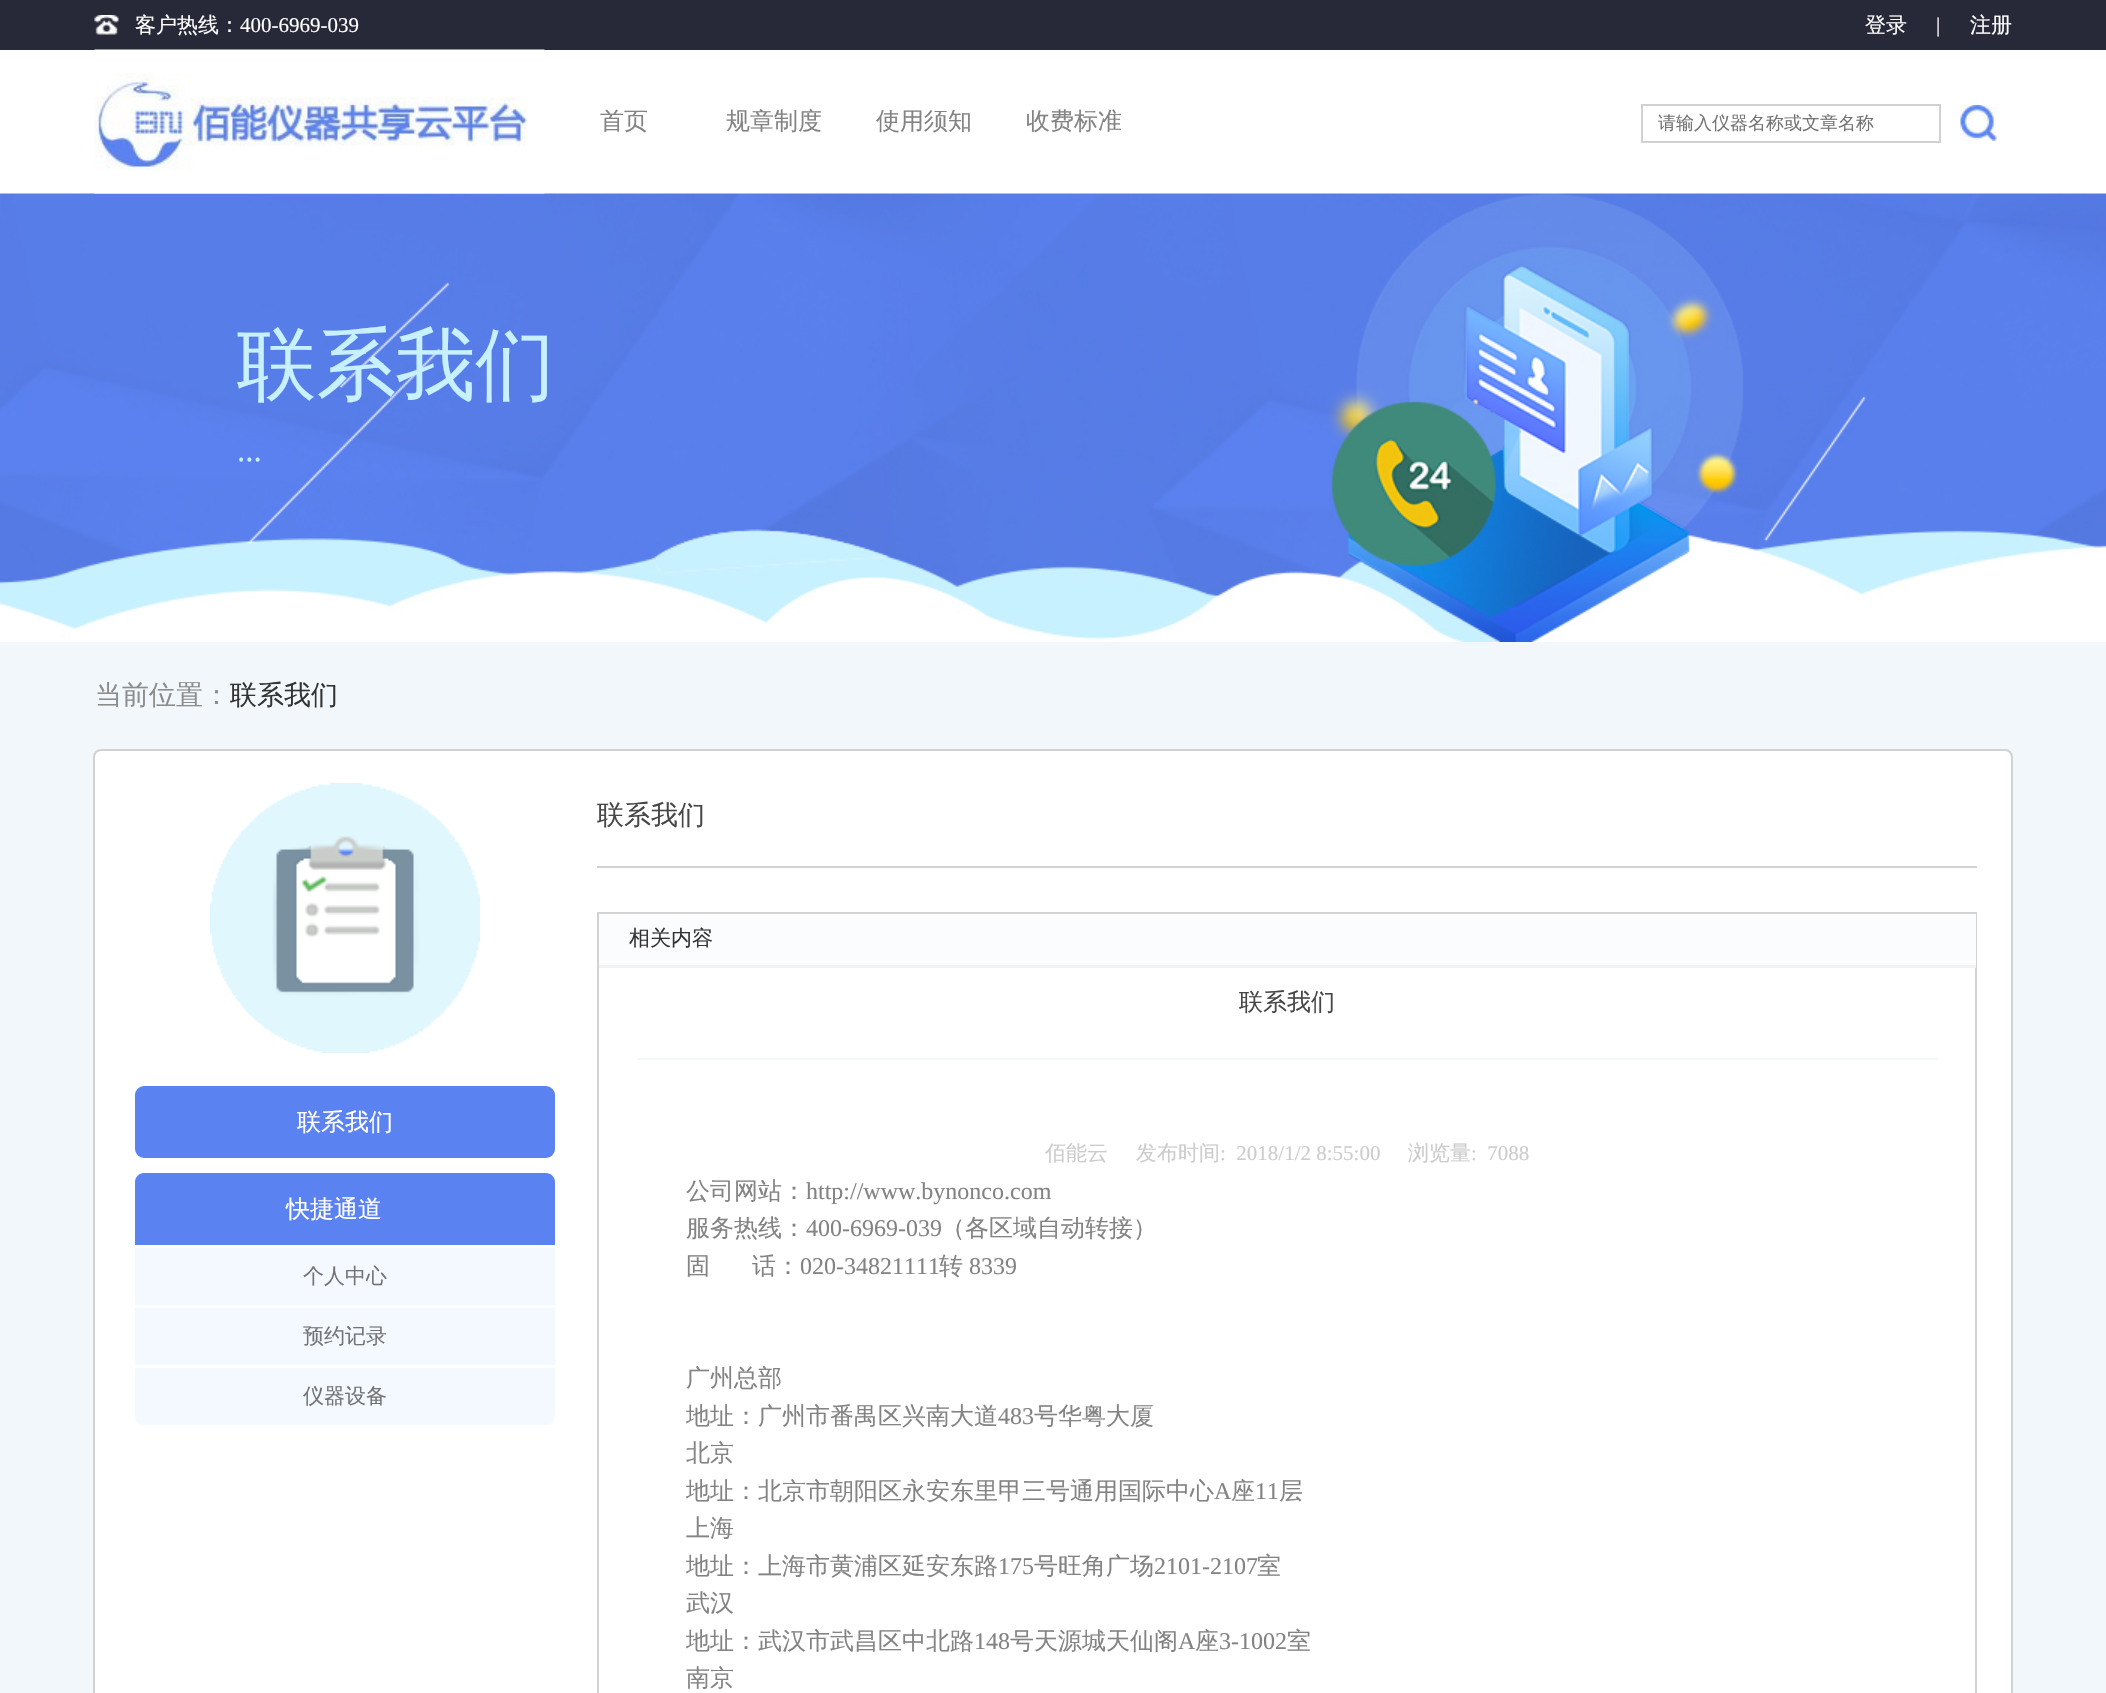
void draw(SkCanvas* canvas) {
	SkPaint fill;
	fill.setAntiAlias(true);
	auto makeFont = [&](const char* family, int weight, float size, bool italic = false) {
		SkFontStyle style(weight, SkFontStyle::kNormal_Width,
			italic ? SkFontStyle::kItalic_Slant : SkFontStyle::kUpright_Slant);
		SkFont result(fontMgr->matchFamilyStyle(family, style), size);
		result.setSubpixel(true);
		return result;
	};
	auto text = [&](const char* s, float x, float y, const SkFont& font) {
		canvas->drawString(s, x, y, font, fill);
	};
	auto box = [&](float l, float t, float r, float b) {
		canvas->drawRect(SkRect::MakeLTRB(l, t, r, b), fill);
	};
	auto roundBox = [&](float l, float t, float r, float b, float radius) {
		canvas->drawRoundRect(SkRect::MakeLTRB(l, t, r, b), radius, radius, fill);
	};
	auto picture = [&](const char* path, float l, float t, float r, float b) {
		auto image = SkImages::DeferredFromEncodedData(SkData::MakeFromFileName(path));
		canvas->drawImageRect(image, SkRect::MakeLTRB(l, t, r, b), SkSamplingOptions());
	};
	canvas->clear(0xFFFFFFFF);
	fill.setColor(0xFF272938);
	box(0, 0, 2106, 50);
	picture("image0.png", 94, 15, 119, 35);
	picture("image3.png", 0, 193, 2106, 642);
	picture("image1.png", 94, 49, 545, 194);
	fill.setStyle(SkPaint::kStroke_Style);
	fill.setStrokeWidth(2);
	fill.setColor(0xFFD1D1D1);
	canvas->drawRect(SkRect::MakeLTRB(1642, 105, 1940, 142), fill);
	picture("image2.png", 1960, 105, 1997, 141);
	fill.setStyle(SkPaint::kFill_Style);
	fill.setColor(0xFFF2F7FB);
	box(0, 642, 2106, 1693);
	fill.setColor(0xFFFFFFFF);
	canvas->drawRoundRect(SkRect::MakeLTRB(94, 750, 2012, 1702), 7, 7, fill);
	fill.setStyle(SkPaint::kStroke_Style);
	fill.setColor(0xFFD2D2D2);
	canvas->drawRoundRect(SkRect::MakeLTRB(94, 750, 2012, 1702), 7, 7, fill);
	picture("image4.png", 210, 783, 480, 1053);
	fill.setStyle(SkPaint::kFill_Style);
	fill.setColor(0xFF5B82F1);
	roundBox(135, 1086, 555, 1158, 9);
	canvas->drawPath(SkPathBuilder().moveTo(144, 1173).lineTo(546, 1173).cubicTo(551, 1173, 555, 1177, 555, 1182).lineTo(555, 1245).lineTo(135, 1245).lineTo(135, 1182).cubicTo(135, 1177, 139, 1173, 144, 1173).close().detach(), fill);
	fill.setColor(0xFFF4F9FF);
	box(135, 1248, 555, 1305);
	box(135, 1308, 555, 1365);
	canvas->drawPath(SkPathBuilder().moveTo(135, 1368).lineTo(555, 1368).lineTo(555, 1416).cubicTo(555, 1421, 551, 1425, 546, 1425).lineTo(144, 1425).cubicTo(139, 1425, 135, 1421, 135, 1416).close().detach(), fill);
	fill.setColor(0xFFD2D2D2);
	box(597, 866, 1977, 868);
	fill.setStyle(SkPaint::kStroke_Style);
	canvas->drawRect(SkRect::MakeLTRB(598, 913, 1976, 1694), fill);
	fill.setStyle(SkPaint::kFill_Style);
	fill.setColor(0xFFFBFCFE);
	box(599, 914, 1976, 965);
	fill.setColor(0xFFF3F2F2);
	box(599, 965, 1976, 968);
	fill.setColor(0xFFF2F7FB);
	box(638, 1058, 1937, 1060);
	auto font1 = makeFont("WenQuanYi Zen Hei", 500, 21);
	fill.setColor(0xFFFFFFFF);
	text("客户热线：", 135, 32, font1);
	auto font2 = makeFont("Liberation Serif", 400, 21);
	text("400-6969-039", 240, 32, font2);
	text("登录", 1865, 32, font1);
	text("|", 1936, 32, font2);
	text("注册", 1970, 32, font1);
	auto font3 = makeFont("WenQuanYi Zen Hei", 500, 24);
	fill.setColor(0xFF838383);
	text("首页", 600, 129, font3);
	text("规章制度", 726, 129, font3);
	text("使用须知", 876, 129, font3);
	text("收费标准", 1026, 129, font3);
	auto font4 = makeFont("WenQuanYi Zen Hei", 500, 18);
	fill.setColor(0xFF737373);
	text("请输入仪器名称或文章名称", 1658, 129, font4);
	auto font5 = makeFont("WenQuanYi Zen Hei", 500, 79.5f);
	fill.setColor(0xFFC8F1FF);
	text("联系我们", 237, 392, font5);
	auto font6 = makeFont("Liberation Serif", 400, 33);
	text("...", 237, 461, font6);
	auto font7 = makeFont("WenQuanYi Zen Hei", 500, 27);
	fill.setColor(0xFF8C8C8C);
	text("当前位置：", 95, 704, font7);
	fill.setColor(0xFF333333);
	text("联系我们", 230, 704, font7);
	fill.setColor(0xFFFFFFFF);
	text("联系我们", 297, 1130, font3);
	text("快捷通道", 286, 1217, font3);
	fill.setColor(0xFF737373);
	text("个人中心", 303, 1283, font1);
	text("预约记录", 303, 1343, font1);
	text("仪器设备", 303, 1403, font1);
	fill.setColor(0xFF484747);
	text("联系我们", 597, 824, font7);
	fill.setColor(0xFF333333);
	text("相关内容", 629, 945, font1);
	fill.setColor(0xFF484747);
	text("联系我们", 1239, 1010, font3);
	fill.setColor(0xFFCCCCCC);
	text("佰能云", 1045, 1160, font1);
	text("发布时间", 1136, 1160, font1);
	text(":  2018/1/2 8:55:00", 1220, 1160, font2);
	text("浏览量", 1408, 1160, font1);
	text(":  7088", 1471, 1160, font2);
	fill.setColor(0xFF838383);
	text("公司网站：", 686, 1199, font3);
	auto font8 = makeFont("Liberation Serif", 400, 24);
	text("http://www.bynonco.com", 806, 1199, font8);
	text("服务热线：", 686, 1236, font3);
	text("400-6969-039", 806, 1236, font8);
	text("（各区域自动转接）", 941, 1236, font3);
	text("固", 686, 1274, font3);
	text("话：", 752, 1274, font3);
	text("020-34821111", 800, 1274, font8);
	text("转", 939, 1274, font3);
	text("8339", 969, 1274, font8);
	text("广州总部", 686, 1386, font3);
	text("地址：广州市番禺区兴南大道", 686, 1424, font3);
	text("483", 998, 1424, font8);
	text("号华粤大厦", 1034, 1424, font3);
	text("北京", 686, 1461, font3);
	text("地址：北京市朝阳区永安东里甲三号通用国际中心", 686, 1499, font3);
	text("A", 1214, 1499, font8);
	text("座", 1231, 1499, font3);
	text("11", 1255, 1499, font8);
	text("层", 1279, 1499, font3);
	text("上海", 686, 1536, font3);
	text("地址：上海市黄浦区延安东路", 686, 1574, font3);
	text("175", 998, 1574, font8);
	text("号旺角广场", 1034, 1574, font3);
	text("2101-2107", 1154, 1574, font8);
	text("室", 1257, 1574, font3);
	text("武汉", 686, 1611, font3);
	text("地址：武汉市武昌区中北路", 686, 1649, font3);
	text("148", 974, 1649, font8);
	text("号天源城天仙阁", 1010, 1649, font3);
	text("A", 1178, 1649, font8);
	text("座", 1195, 1649, font3);
	text("3-1002", 1219, 1649, font8);
	text("室", 1287, 1649, font3);
	text("南京", 686, 1686, font3);
}
